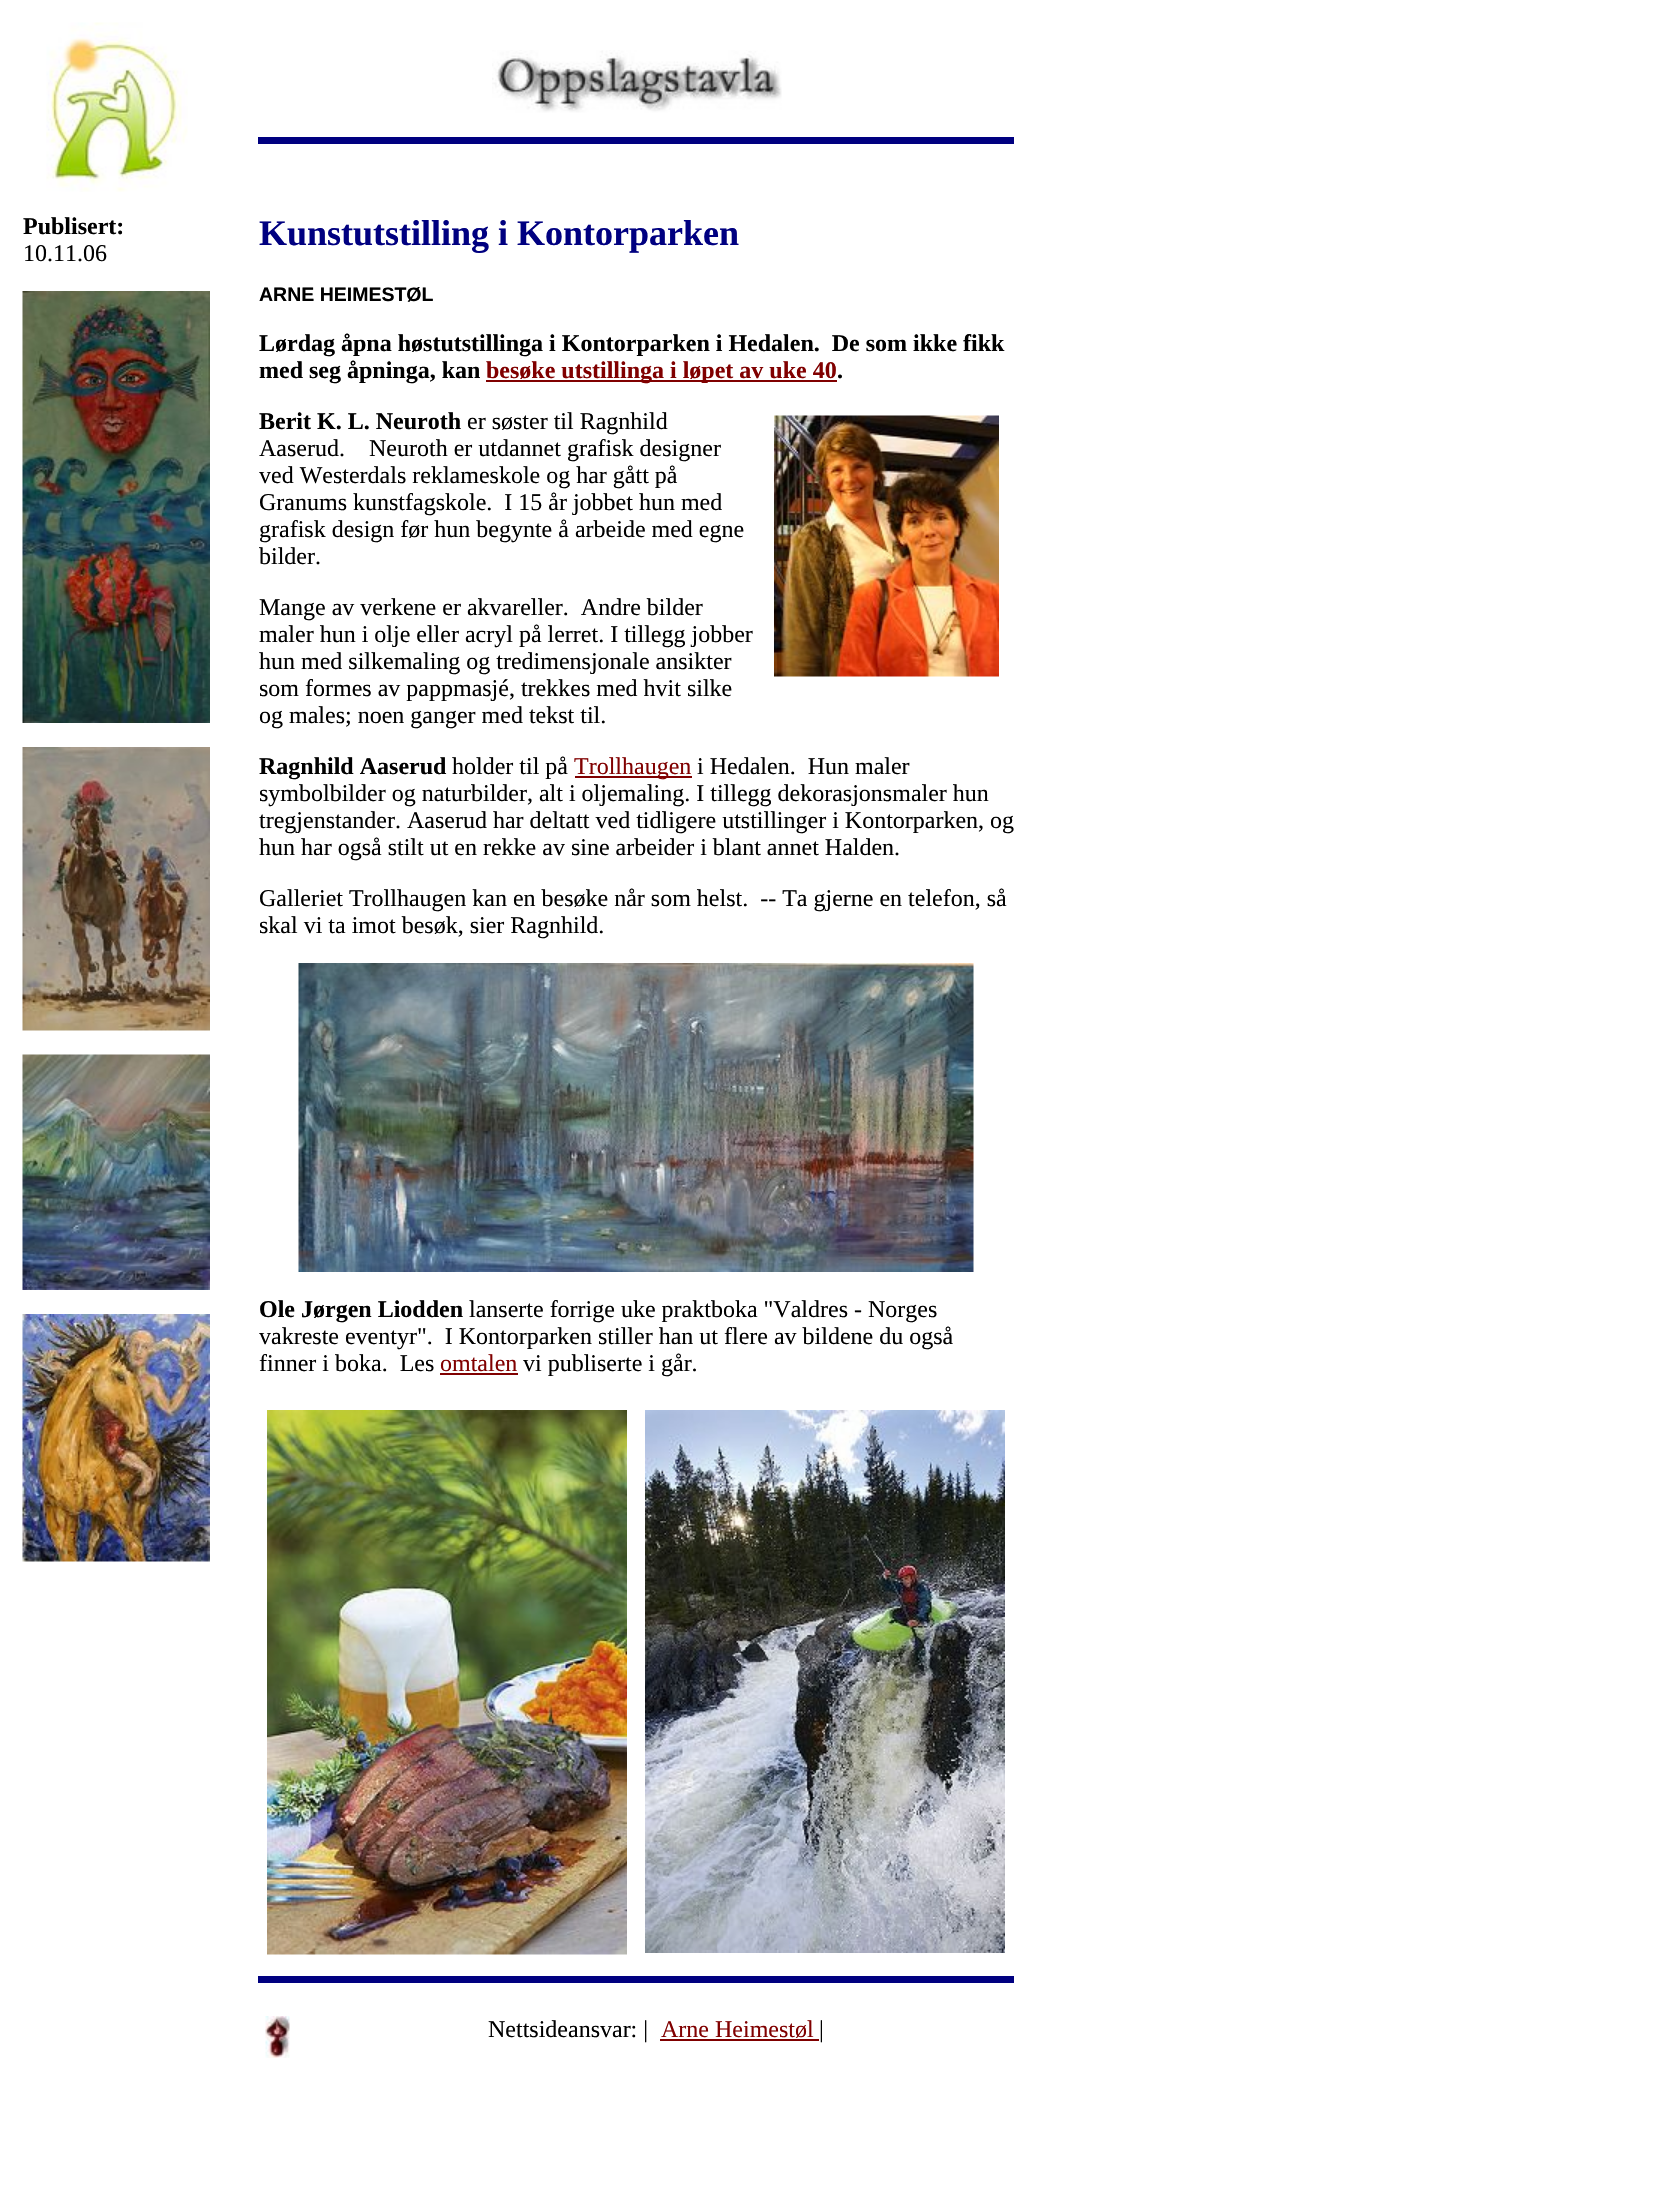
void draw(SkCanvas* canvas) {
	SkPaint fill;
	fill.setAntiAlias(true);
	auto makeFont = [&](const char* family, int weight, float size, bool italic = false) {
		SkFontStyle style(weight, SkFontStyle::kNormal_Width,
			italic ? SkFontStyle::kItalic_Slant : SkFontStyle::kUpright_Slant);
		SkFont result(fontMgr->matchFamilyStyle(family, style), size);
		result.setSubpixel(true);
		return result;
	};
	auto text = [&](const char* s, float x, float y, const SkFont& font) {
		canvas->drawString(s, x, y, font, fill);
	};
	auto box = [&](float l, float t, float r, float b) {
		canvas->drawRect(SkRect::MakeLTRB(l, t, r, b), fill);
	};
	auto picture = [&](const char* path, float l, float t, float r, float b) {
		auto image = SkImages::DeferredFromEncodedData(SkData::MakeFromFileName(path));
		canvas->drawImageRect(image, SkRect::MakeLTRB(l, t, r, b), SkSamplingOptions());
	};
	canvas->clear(0xFFFFFFFF);
	picture("image0.png", 46, 22, 188, 192);
	picture("image1.png", 492, 50, 782, 113);
	fill.setColor(0xFF000080);
	box(258, 137, 1014, 144);
	picture("image2.png", 22, 291, 210, 723);
	picture("image3.png", 22, 747, 210, 1031);
	picture("image4.png", 22, 1054, 210, 1290);
	picture("image5.png", 22, 1314, 210, 1562);
	fill.setColor(0xFF800000);
	box(486, 380, 837, 382);
	picture("image6.png", 774, 415, 999, 677);
	box(575, 776, 692, 778);
	picture("image7.png", 298, 963, 974, 1272);
	box(440, 1373, 518, 1375);
	picture("image8.png", 267, 1410, 627, 1955);
	picture("image9.png", 645, 1410, 1005, 1953);
	fill.setColor(0xFF000080);
	box(258, 1976, 1014, 1983);
	picture("image10.png", 265, 2016, 290, 2058);
	fill.setColor(0xFF800000);
	box(660, 2039, 819, 2041);
	auto font1 = makeFont("Liberation Serif", 700, 24);
	fill.setColor(0xFF000000);
	text("Publisert:", 23, 234, font1);
	auto font2 = makeFont("Liberation Serif", 400, 24);
	text("10.11.06", 23, 261, font2);
	auto font3 = makeFont("Liberation Serif", 700, 36);
	fill.setColor(0xFF000080);
	text("Kunstutstilling i Kontorparken", 259, 245, font3);
	auto font4 = makeFont("Liberation Sans", 700, 19.5f);
	fill.setColor(0xFF000000);
	text("ARNE HEIMESTØL", 259, 301, font4);
	text("Lørdag åpna høstutstillinga i Kontorparken i Hedalen.  De som ikke fikk", 259, 351, font1);
	text("med seg åpninga, kan", 259, 378, font1);
	fill.setColor(0xFF800000);
	text("besøke utstillinga i løpet av uke 40", 486, 378, font1);
	fill.setColor(0xFF000000);
	text(".", 837, 378, font1);
	text("Berit K. L. Neuroth", 259, 429, font1);
	text("er søster til Ragnhild", 467, 429, font2);
	text("Aaserud.", 259, 456, font2);
	text("Neuroth er utdannet grafisk designer", 369, 456, font2);
	text("ved Westerdals reklameskole og har gått på", 259, 483, font2);
	text("Granums kunstfagskole.  I 15 år jobbet hun med", 259, 510, font2);
	text("grafisk design før hun begynte å arbeide med egne", 259, 537, font2);
	text("bilder.", 259, 564, font2);
	text("Mange av verkene er akvareller.  Andre bilder", 259, 615, font2);
	text("maler hun i olje eller acryl på lerret. I tillegg jobber", 259, 642, font2);
	text("hun med silkemaling og tredimensjonale ansikter", 259, 669, font2);
	text("som formes av pappmasjé, trekkes med hvit silke", 259, 696, font2);
	text("og males; noen ganger med tekst til.", 259, 723, font2);
	text("Ragnhild Aaserud", 259, 774, font1);
	text("holder til på", 452, 774, font2);
	fill.setColor(0xFF800000);
	text("Trollhaugen", 574, 774, font2);
	fill.setColor(0xFF000000);
	text("i Hedalen.  Hun maler", 697, 774, font2);
	text("symbolbilder og naturbilder, alt i oljemaling. I tillegg dekorasjonsmaler hun", 259, 801, font2);
	text("tregjenstander. Aaserud har deltatt ved tidligere utstillinger i Kontorparken, og", 259, 828, font2);
	text("hun har også stilt ut en rekke av sine arbeider i blant annet Halden.", 259, 855, font2);
	text("Galleriet Trollhaugen kan en besøke når som helst.  -- Ta gjerne en telefon, så", 259, 906, font2);
	text("skal vi ta imot besøk, sier Ragnhild.", 259, 933, font2);
	text("Ole Jørgen Liodden", 259, 1317, font1);
	text("lanserte forrige uke praktboka \"Valdres - Norges", 469, 1317, font2);
	text("vakreste eventyr\".  I Kontorparken stiller han ut flere av bildene du også", 259, 1344, font2);
	text("finner i boka.  Les", 259, 1371, font2);
	fill.setColor(0xFF800000);
	text("omtalen", 440, 1371, font2);
	fill.setColor(0xFF000000);
	text("vi publiserte i går.", 523, 1371, font2);
	text("Nettsideansvar: |", 488, 2037, font2);
	fill.setColor(0xFF800000);
	text("Arne Heimestøl", 661, 2037, font2);
	fill.setColor(0xFF000000);
	text("|", 819, 2037, font2);
}
